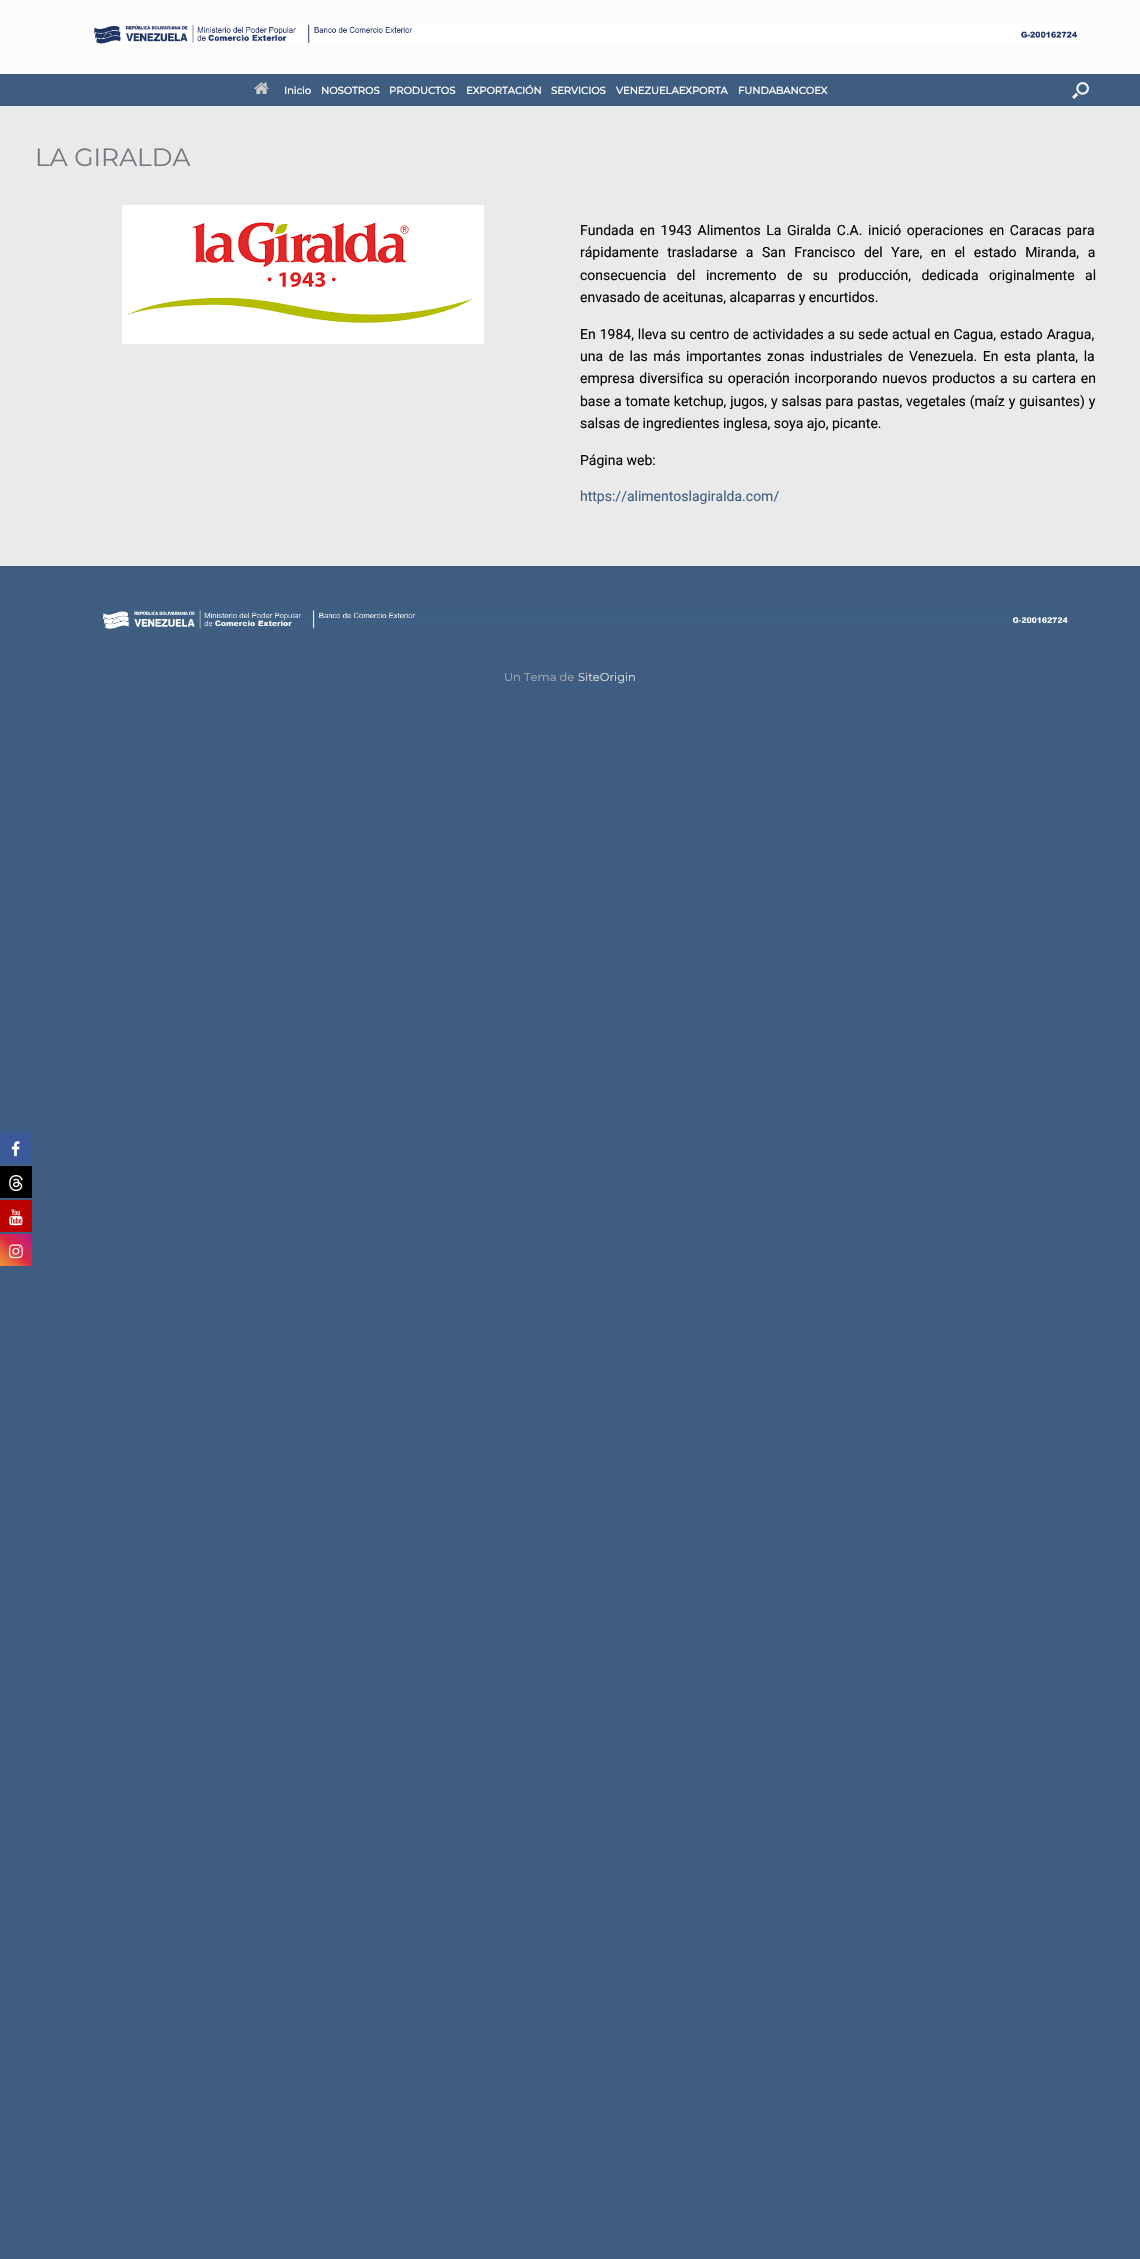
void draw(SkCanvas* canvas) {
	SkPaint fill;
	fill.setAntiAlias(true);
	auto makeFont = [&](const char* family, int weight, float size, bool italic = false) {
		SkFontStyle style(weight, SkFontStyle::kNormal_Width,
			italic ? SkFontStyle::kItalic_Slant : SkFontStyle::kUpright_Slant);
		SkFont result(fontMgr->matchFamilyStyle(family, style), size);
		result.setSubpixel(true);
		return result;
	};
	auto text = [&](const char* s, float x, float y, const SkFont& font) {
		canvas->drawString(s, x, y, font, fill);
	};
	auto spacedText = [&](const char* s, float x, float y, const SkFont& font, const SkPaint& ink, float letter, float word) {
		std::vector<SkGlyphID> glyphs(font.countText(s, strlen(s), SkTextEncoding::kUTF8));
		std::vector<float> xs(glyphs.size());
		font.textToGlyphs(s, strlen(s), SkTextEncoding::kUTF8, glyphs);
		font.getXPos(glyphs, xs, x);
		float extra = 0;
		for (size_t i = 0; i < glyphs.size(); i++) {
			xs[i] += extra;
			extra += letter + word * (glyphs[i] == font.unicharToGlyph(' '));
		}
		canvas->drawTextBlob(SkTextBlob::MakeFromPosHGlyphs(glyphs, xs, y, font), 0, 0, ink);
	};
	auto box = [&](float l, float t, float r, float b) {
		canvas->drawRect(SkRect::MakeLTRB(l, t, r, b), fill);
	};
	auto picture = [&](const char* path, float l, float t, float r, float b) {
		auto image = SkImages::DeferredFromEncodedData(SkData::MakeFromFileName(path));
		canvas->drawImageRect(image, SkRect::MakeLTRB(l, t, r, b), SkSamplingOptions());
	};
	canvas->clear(0xFF3E5D81);
	fill.setColor(0xFFFCFCFC);
	box(0, 0, 1140, 74);
	picture("image0.png", 94, 24, 1078, 44);
	picture("image1.png", 254, 82, 269, 94);
	picture("image2.png", 1072, 82, 1089, 99);
	fill.setColor(0xFFEAEAEA);
	box(0, 106, 1140, 566);
	picture("image3.png", 122, 205, 484, 344);
	picture("image4.png", 102, 610, 1068, 629);
	fill.setColor(0xFF3B5998);
	box(0, 1132, 32, 1164);
	picture("image5.png", 11, 1141, 20, 1157);
	fill.setColor(0xFF000000);
	box(0, 1166, 32, 1198);
	picture("image6.png", 9, 1175, 23, 1191);
	fill.setColor(0xFFBB0000);
	box(0, 1200, 32, 1232);
	picture("image7.png", 9, 1209, 23, 1226);
	{
		const SkColor colors[] = {0xFFF09433, 0xFFE6683C, 0xFFDC2743, 0xFFCC2366, 0xFFBC1888};
		const float stops[] = {0, 0.25f, 0.5f, 0.75f, 1};
		const SkPoint ends[] = {{0, 1266}, {32, 1234}};
		fill.setShader(SkGradientShader::MakeLinear(ends, colors, stops, 5, SkTileMode::kClamp));
		fill.setAlpha(255);
	}
	box(0, 1234, 32, 1266);
	picture("image8.png", 9, 1244, 23, 1259);
	auto font1 = makeFont("Montserrat", 700, 10);
	fill.setShader(nullptr);
	fill.setColor(0xFFFFFFFF);
	text("Inicio", 284, 94, font1);
	text("NOSOTROS", 321, 94, font1);
	text("PRODUCTOS", 389, 94, font1);
	text("EXPORTACIÓN", 466, 94, font1);
	text("SERVICIOS", 551, 94, font1);
	text("VENEZUELAEXPORTA", 616, 94, font1);
	text("FUNDABANCOEX", 738, 94, font1);
	auto font2 = makeFont("Montserrat", 400, 25);
	fill.setColor(0xFF757A82);
	text("LA GIRALDA", 35, 166, font2);
	auto font3 = makeFont("Roboto", 400, 14);
	fill.setColor(0xFF060606);
	spacedText("Fundada en 1943 Alimentos La Giralda C.A. inició operaciones en Caracas para", 580, 235, font3, fill, 0, 2.1f);
	spacedText("rápidamente trasladarse a San Francisco del Yare, en el estado Miranda, a", 580, 257, font3, fill, 0, 5.1f);
	spacedText("consecuencia del incremento de su producción, dedicada originalmente al", 580, 280, font3, fill, 0, 7);
	text("envasado de aceitunas, alcaparras y encurtidos.", 580, 302, font3);
	spacedText("En 1984, lleva su centro de actividades a su sede actual en Cagua, estado Aragua,", 580, 339, font3, fill, 0, 0.5f);
	spacedText("una de las más importantes zonas industriales de Venezuela. En esta planta, la", 580, 361, font3, fill, 0, 2.1f);
	spacedText("empresa diversifica su operación incorporando nuevos productos a su cartera en", 580, 383, font3, fill, 0, 1.25f);
	spacedText("base a tomate ketchup, jugos, y salsas para pastas, vegetales (maíz y guisantes) y", 580, 406, font3, fill, 0, 0.4f);
	text("salsas de ingredientes inglesa, soya ajo, picante.", 580, 428, font3);
	text("Página web:", 580, 465, font3);
	fill.setColor(0xFF3E5D81);
	text("https://alimentoslagiralda.com/", 580, 501, font3);
	auto font4 = makeFont("Montserrat", 400, 11.5f);
	fill.setColor(0xFFAAAAAA);
	text("Un Tema de", 504, 681, font4);
	fill.setColor(0xFFDDDDDD);
	text("SiteOrigin", 578, 681, font4);
}
